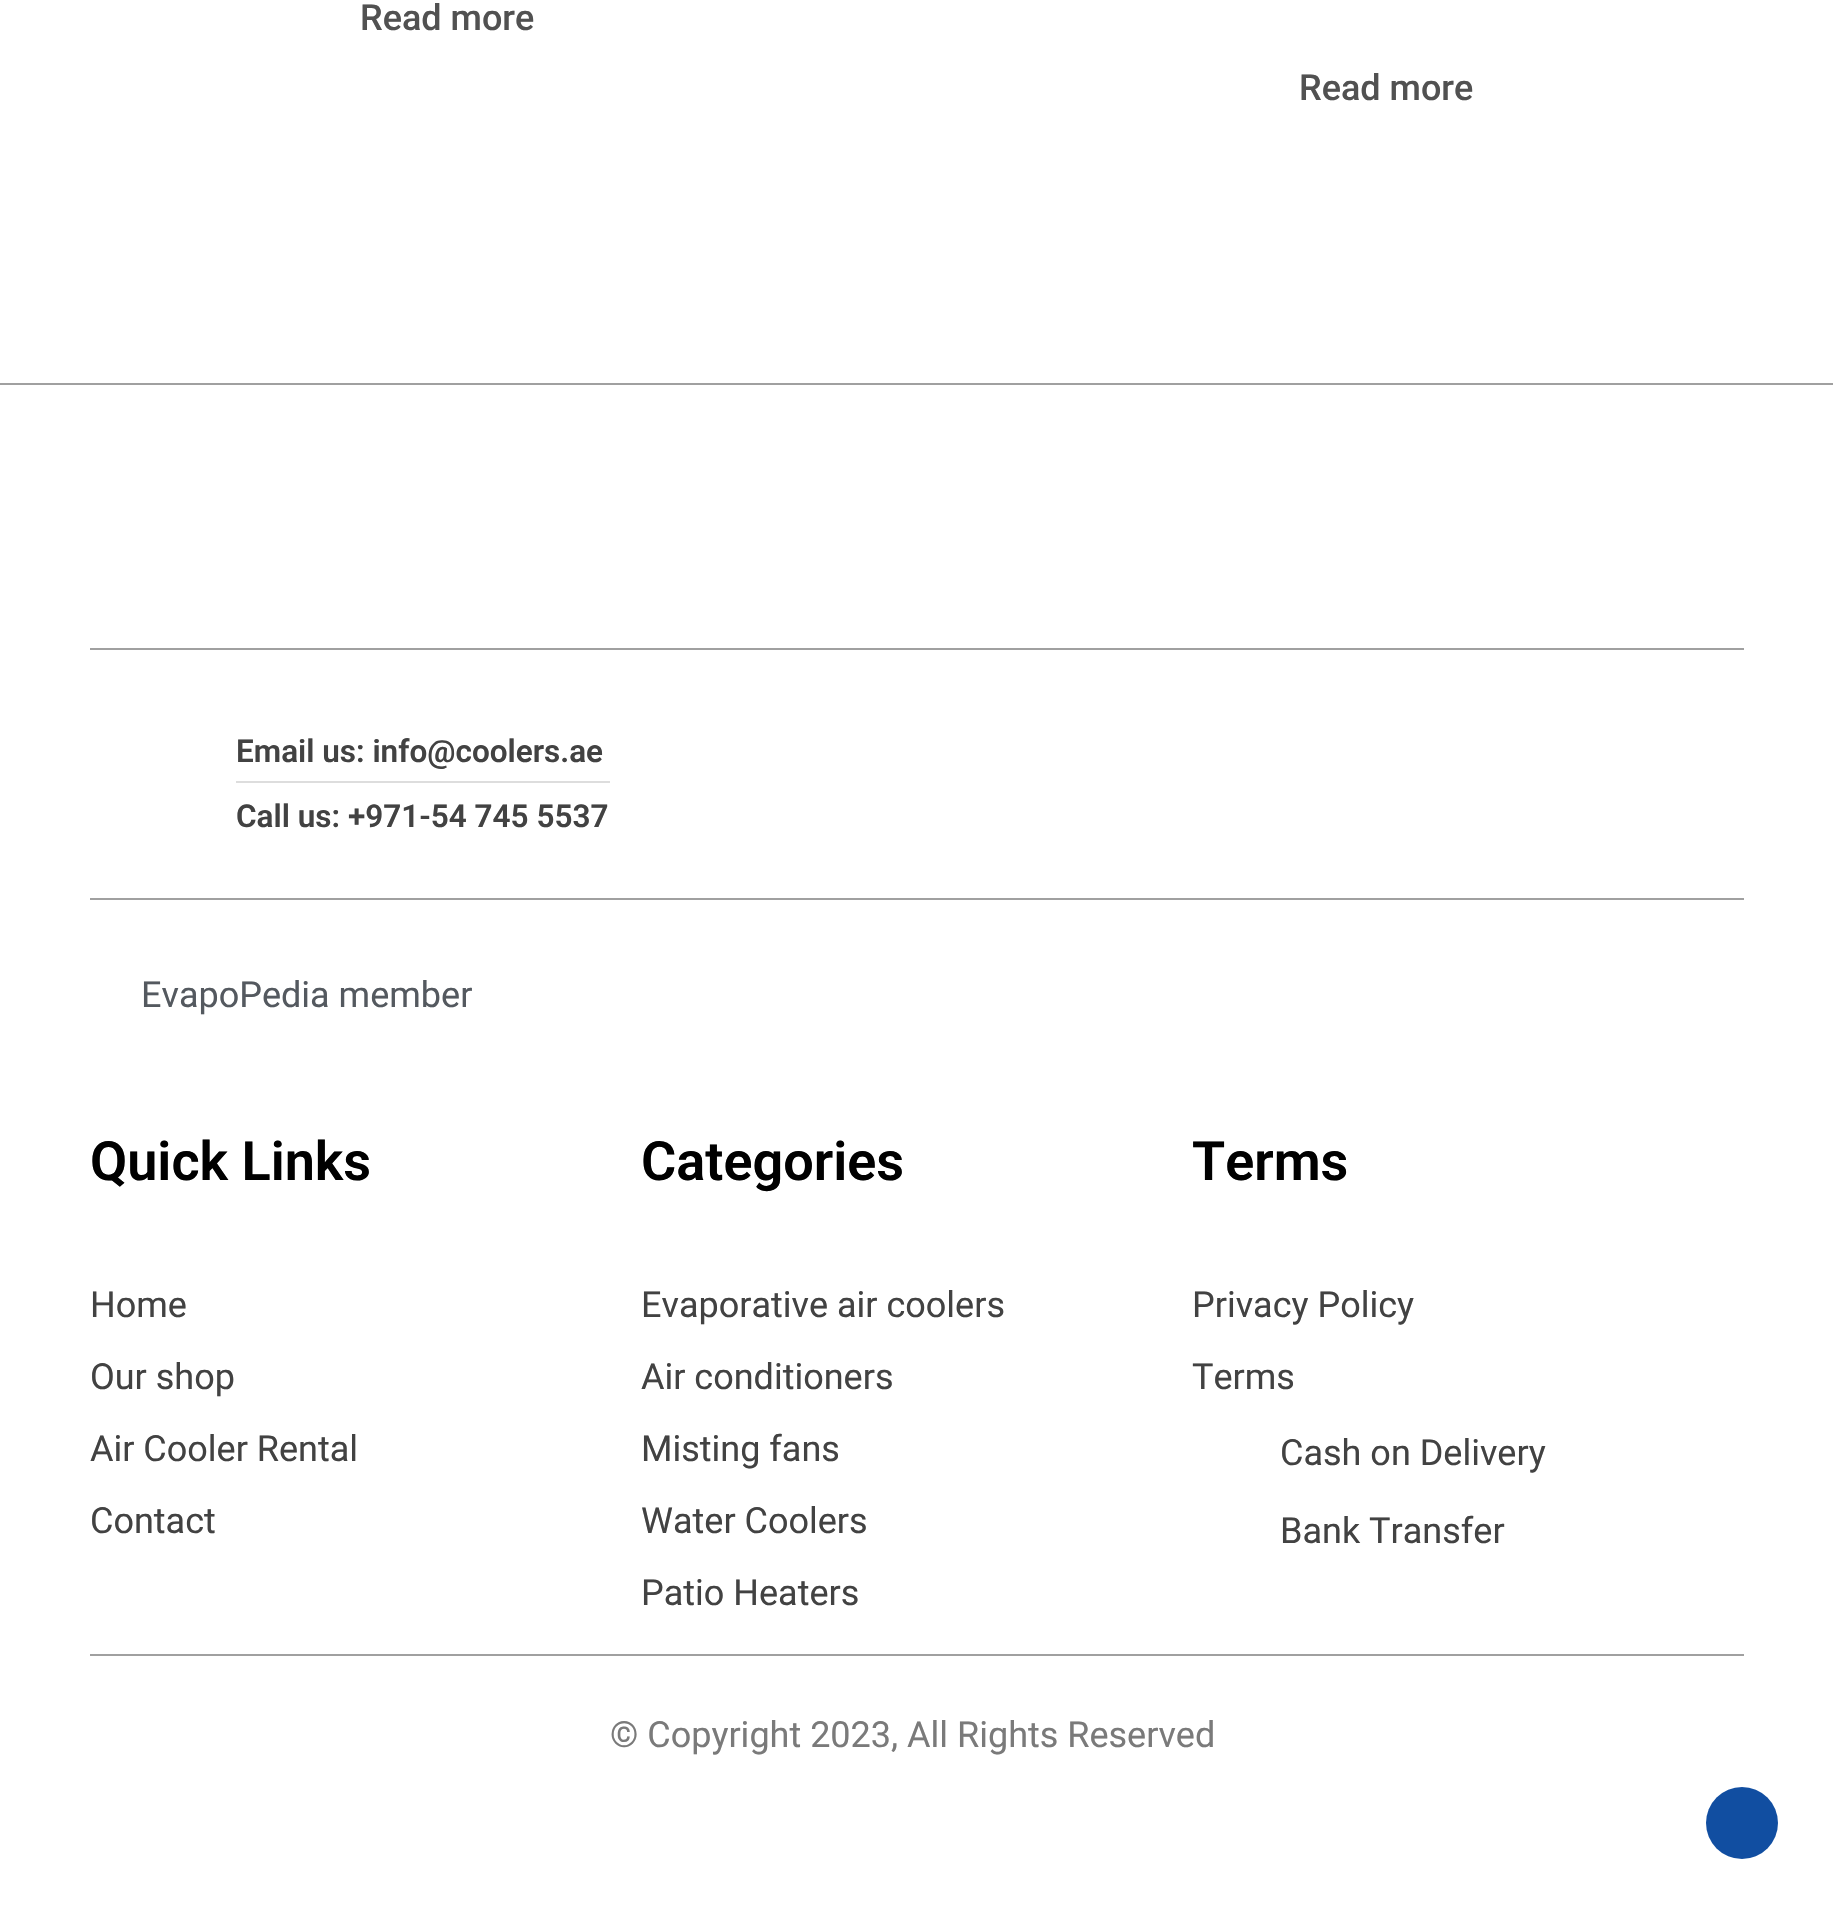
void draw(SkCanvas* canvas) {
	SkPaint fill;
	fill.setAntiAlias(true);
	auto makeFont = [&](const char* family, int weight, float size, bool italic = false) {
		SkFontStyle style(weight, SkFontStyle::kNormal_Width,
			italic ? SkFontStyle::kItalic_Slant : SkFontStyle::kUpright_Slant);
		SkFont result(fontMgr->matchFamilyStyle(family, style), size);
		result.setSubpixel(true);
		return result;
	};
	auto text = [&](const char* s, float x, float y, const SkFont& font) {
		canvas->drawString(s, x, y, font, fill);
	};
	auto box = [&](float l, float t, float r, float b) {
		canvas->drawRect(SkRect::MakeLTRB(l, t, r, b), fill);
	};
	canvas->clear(0xFFFFFFFF);
	fill.setColor(0xFFA0A0A0);
	box(0, 383, 1833, 385);
	box(90, 648, 1744, 650);
	fill.setColor(0xFFDDDDDD);
	box(236, 781, 610, 783);
	fill.setColor(0xFFA0A0A0);
	box(90, 898, 1744, 900);
	box(90, 1654, 1744, 1656);
	fill.setColor(0xFF114EA1);
	canvas->drawCircle(1742, 1823, 36, fill);
	auto font1 = makeFont("Roboto", 500, 36);
	fill.setColor(0xFF515151);
	text("Read more", 360, 30, font1);
	text("Read more", 1299, 100, font1);
	auto font2 = makeFont("Roboto", 600, 31.5f);
	fill.setColor(0xFF424242);
	text("Email us: info@coolers.ae", 236, 762, font2);
	text("Call us: +971-54 745 5537", 236, 827, font2);
	auto font3 = makeFont("Roboto", 400, 36);
	fill.setColor(0xFF54595F);
	text("EvapoPedia member", 141, 1007, font3);
	auto font4 = makeFont("Roboto", 600, 54);
	fill.setColor(0xFF000000);
	text("Quick Links", 90, 1180, font4);
	fill.setColor(0xFF424242);
	text("Home", 90, 1317, font3);
	text("Our shop", 90, 1389, font3);
	text("Air Cooler Rental", 90, 1461, font3);
	text("Contact", 90, 1533, font3);
	fill.setColor(0xFF000000);
	text("Categories", 641, 1180, font4);
	fill.setColor(0xFF424242);
	text("Evaporative air coolers", 641, 1317, font3);
	text("Air conditioners", 641, 1389, font3);
	text("Misting fans", 641, 1461, font3);
	text("Water Coolers", 641, 1533, font3);
	text("Patio Heaters", 641, 1605, font3);
	fill.setColor(0xFF000000);
	text("Terms", 1192, 1180, font4);
	fill.setColor(0xFF424242);
	text("Privacy Policy", 1192, 1317, font3);
	text("Terms", 1192, 1389, font3);
	text("Cash on Delivery", 1280, 1465, font3);
	text("Bank Transfer", 1280, 1543, font3);
	fill.setColor(0xFF7A7A7A);
	text("© Copyright 2023, All Rights Reserved", 610, 1747, font3);
}
